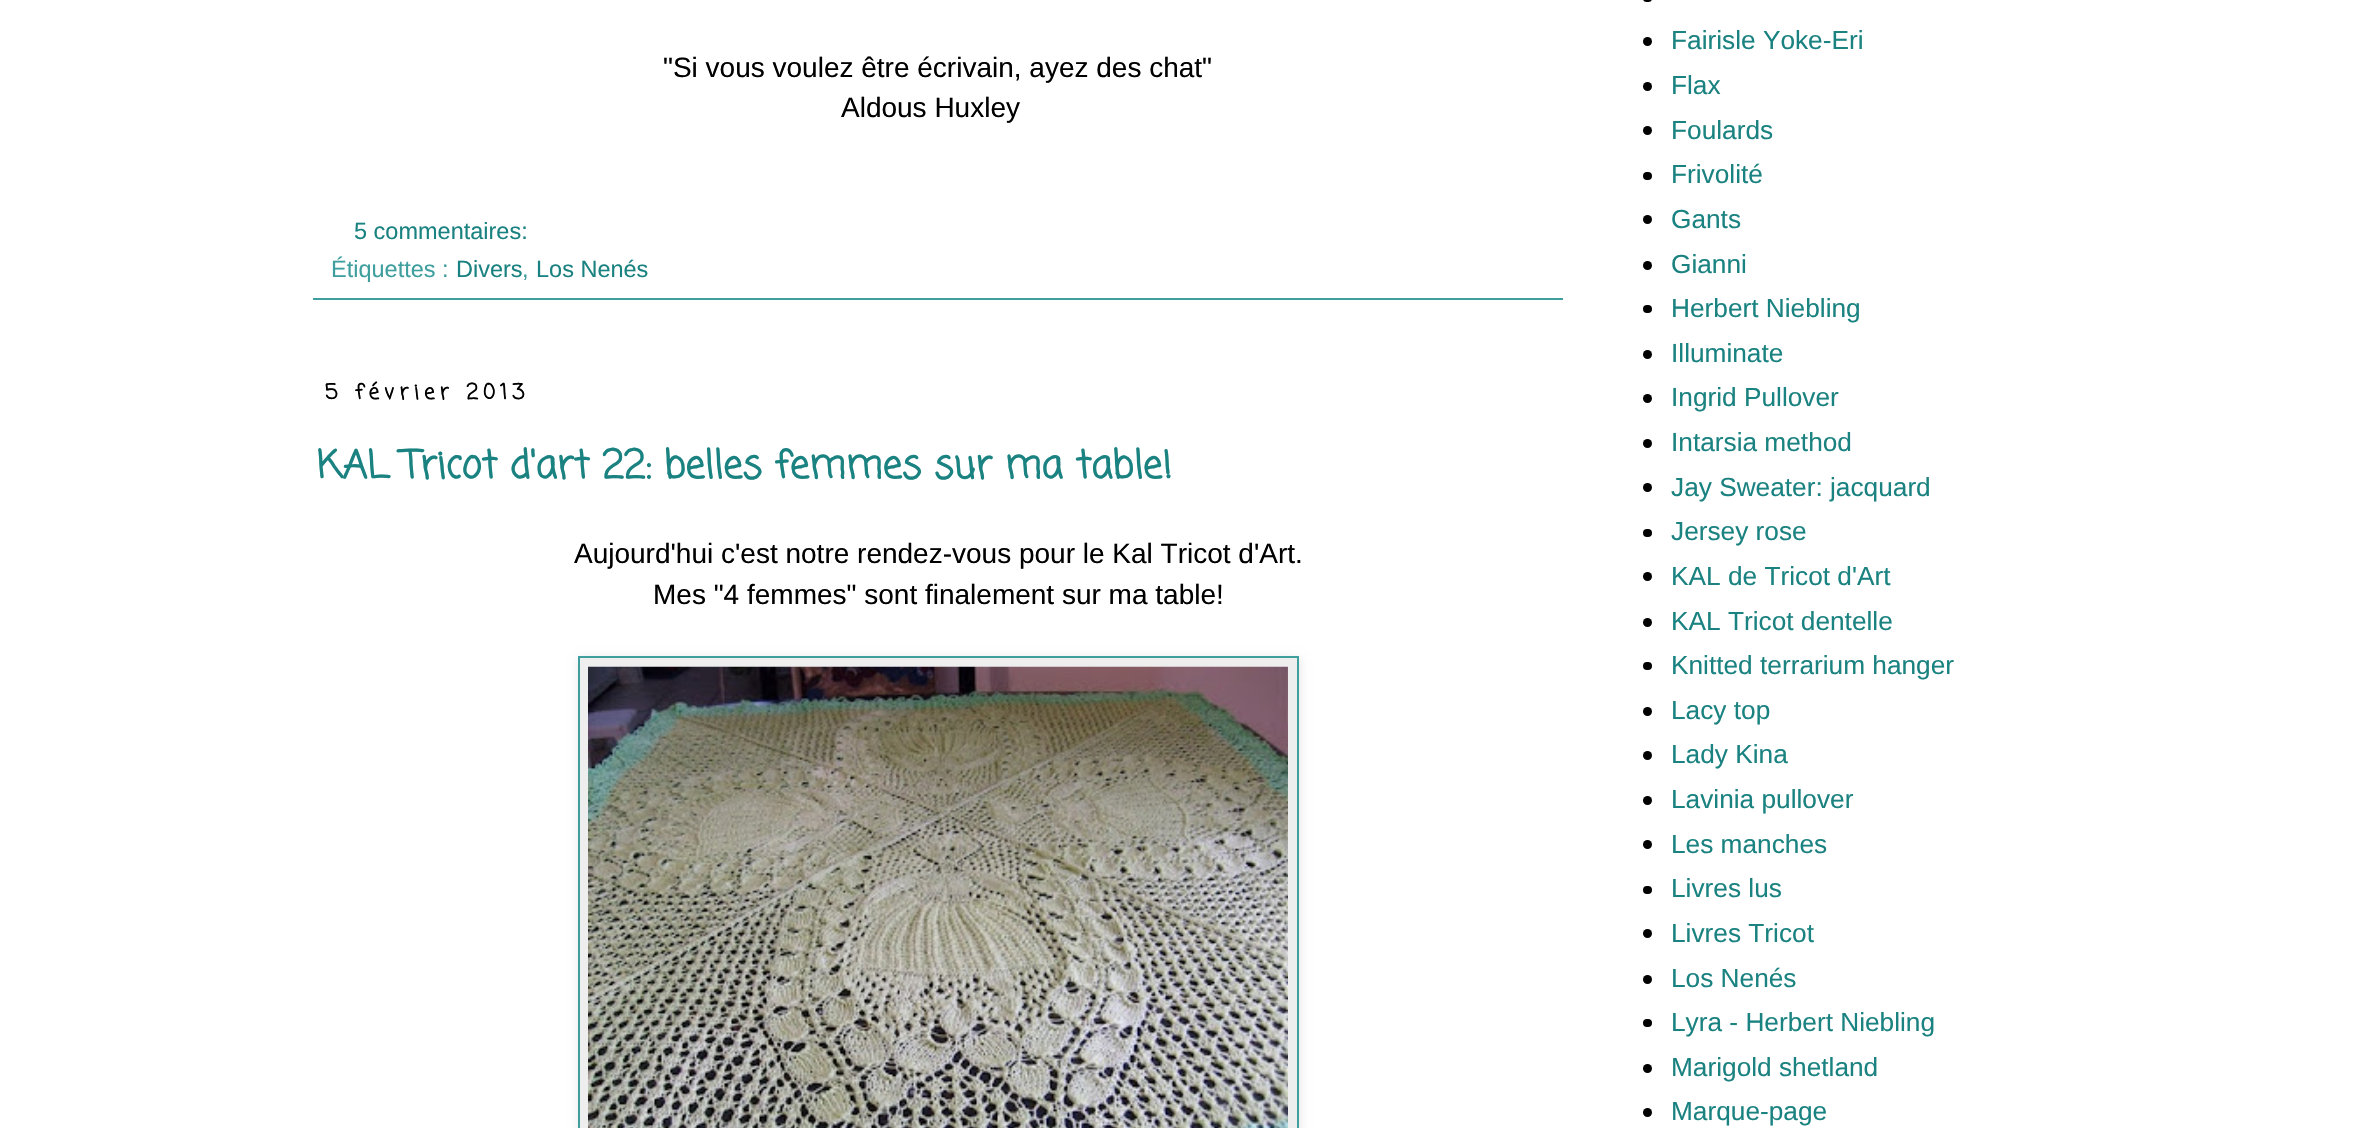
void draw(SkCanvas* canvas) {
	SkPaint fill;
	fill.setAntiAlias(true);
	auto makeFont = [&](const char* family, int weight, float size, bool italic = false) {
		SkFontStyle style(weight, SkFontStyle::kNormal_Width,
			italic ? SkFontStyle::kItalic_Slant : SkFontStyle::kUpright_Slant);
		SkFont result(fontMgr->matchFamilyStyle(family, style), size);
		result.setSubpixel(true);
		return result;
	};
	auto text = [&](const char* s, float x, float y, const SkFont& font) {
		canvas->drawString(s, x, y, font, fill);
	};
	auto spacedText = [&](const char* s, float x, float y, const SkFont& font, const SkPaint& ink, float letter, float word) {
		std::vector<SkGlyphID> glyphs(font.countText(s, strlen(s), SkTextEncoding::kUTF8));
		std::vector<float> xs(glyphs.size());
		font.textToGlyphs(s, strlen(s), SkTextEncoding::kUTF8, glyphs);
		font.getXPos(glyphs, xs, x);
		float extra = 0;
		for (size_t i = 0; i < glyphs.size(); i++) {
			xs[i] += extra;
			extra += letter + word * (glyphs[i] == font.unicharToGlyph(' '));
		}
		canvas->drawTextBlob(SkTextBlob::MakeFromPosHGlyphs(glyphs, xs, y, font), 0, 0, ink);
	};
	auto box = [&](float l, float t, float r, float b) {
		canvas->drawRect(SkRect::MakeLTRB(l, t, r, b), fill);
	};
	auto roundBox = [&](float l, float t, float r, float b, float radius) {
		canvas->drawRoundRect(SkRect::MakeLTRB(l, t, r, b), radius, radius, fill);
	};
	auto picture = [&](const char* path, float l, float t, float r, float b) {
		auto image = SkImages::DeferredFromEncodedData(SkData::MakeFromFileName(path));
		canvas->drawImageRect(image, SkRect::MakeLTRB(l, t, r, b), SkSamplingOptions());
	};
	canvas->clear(0xFFFFFFFF);
	fill.setColor(0xFF3F9F9F);
	box(313, 298, 1563, 300);
	fill.setColor(0x1A000000);
	fill.setMaskFilter(SkMaskFilter::MakeBlur(kNormal_SkBlurStyle, 4.5f));
	canvas->drawRect(SkRect::MakeLTRB(579, 658, 1300, 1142), fill);
	fill.setMaskFilter(nullptr);
	fill.setColor(0xFFEEEEEE);
	canvas->drawRect(SkRect::MakeLTRB(579, 657, 1298, 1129), fill);
	fill.setStyle(SkPaint::kStroke_Style);
	fill.setStrokeWidth(2);
	fill.setColor(0xFF3F9F9F);
	canvas->drawRect(SkRect::MakeLTRB(579, 657, 1298, 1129), fill);
	picture("image0.png", 588, 666, 1288, 1128);
	fill.setStyle(SkPaint::kFill_Style);
	fill.setColor(0xFF000000);
	roundBox(1643, -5, 1652, 2, 4.5f);
	canvas->drawCircle(1647.5f, 41.5f, 4.5f, fill);
	canvas->drawCircle(1647.5f, 86.5f, 4.5f, fill);
	canvas->drawCircle(1647.5f, 130.5f, 4.5f, fill);
	roundBox(1643, 172, 1652, 180, 4);
	canvas->drawCircle(1647.5f, 219.5f, 4.5f, fill);
	canvas->drawCircle(1647.5f, 265.5f, 4.5f, fill);
	roundBox(1643, 305, 1652, 313, 4);
	canvas->drawCircle(1647.5f, 354.5f, 4.5f, fill);
	canvas->drawCircle(1647.5f, 398.5f, 4.5f, fill);
	canvas->drawCircle(1647.5f, 443.5f, 4.5f, fill);
	canvas->drawCircle(1647.5f, 487.5f, 4.5f, fill);
	roundBox(1643, 529, 1652, 537, 4);
	canvas->drawCircle(1647.5f, 576.5f, 4.5f, fill);
	canvas->drawCircle(1647.5f, 622.5f, 4.5f, fill);
	roundBox(1643, 662, 1652, 670, 4);
	canvas->drawCircle(1647.5f, 711.5f, 4.5f, fill);
	canvas->drawCircle(1647.5f, 755.5f, 4.5f, fill);
	canvas->drawCircle(1647.5f, 800.5f, 4.5f, fill);
	canvas->drawCircle(1647.5f, 844.5f, 4.5f, fill);
	roundBox(1643, 886, 1652, 894, 4);
	canvas->drawCircle(1647.5f, 933.5f, 4.5f, fill);
	canvas->drawCircle(1647.5f, 979.5f, 4.5f, fill);
	roundBox(1643, 1019, 1652, 1027, 4);
	canvas->drawCircle(1647.5f, 1068.5f, 4.5f, fill);
	canvas->drawCircle(1647.5f, 1112.5f, 4.5f, fill);
	auto font1 = makeFont("Liberation Sans", 400, 28);
	text("\"Si vous voulez être écrivain, ayez des chat\"", 663, 77, font1);
	text("Aldous Huxley", 841, 117, font1);
	auto font2 = makeFont("Liberation Sans", 400, 23.5f);
	fill.setColor(0xFF1A8280);
	text("5 commentaires:", 354, 239, font2);
	fill.setColor(0xFF3F9F9F);
	text("Étiquettes :", 331, 277, font2);
	fill.setColor(0xFF1A8280);
	text("Divers", 456, 277, font2);
	fill.setColor(0xFF3F9F9F);
	text(",", 522, 277, font2);
	fill.setColor(0xFF1A8280);
	text("Los Nenés", 536, 277, font2);
	auto font3 = makeFont("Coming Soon", 700, 21);
	fill.setColor(0xFF000000);
	spacedText("5 février 2013", 325, 399, font3, fill, 5.25f, 0);
	auto font4 = makeFont("Coming Soon", 700, 38.5f);
	fill.setColor(0xFF1A8280);
	text("KAL Tricot d'art 22: belles femmes sur ma table!", 317, 478, font4);
	fill.setColor(0xFF000000);
	text("Aujourd'hui c'est notre rendez-vous pour le Kal Tricot d'Art.", 574, 563, font1);
	text("Mes \"4 femmes\" sont finalement sur ma table!", 653, 604, font1);
	auto font5 = makeFont("Liberation Sans", 400, 26.25f);
	fill.setColor(0xFF1A8280);
	text("Fairisle Yoke-Eri", 1671, 49, font5);
	text("Flax", 1671, 94, font5);
	text("Foulards", 1671, 139, font5);
	text("Frivolité", 1671, 183, font5);
	text("Gants", 1671, 228, font5);
	text("Gianni", 1671, 273, font5);
	text("Herbert Niebling", 1671, 317, font5);
	text("Illuminate", 1671, 362, font5);
	text("Ingrid Pullover", 1671, 406, font5);
	text("Intarsia method", 1671, 451, font5);
	text("Jay Sweater: jacquard", 1671, 496, font5);
	text("Jersey rose", 1671, 540, font5);
	text("KAL de Tricot d'Art", 1671, 585, font5);
	text("KAL Tricot dentelle", 1671, 630, font5);
	text("Knitted terrarium hanger", 1671, 674, font5);
	text("Lacy top", 1671, 719, font5);
	text("Lady Kina", 1671, 763, font5);
	text("Lavinia pullover", 1671, 808, font5);
	text("Les manches", 1671, 853, font5);
	text("Livres lus", 1671, 897, font5);
	text("Livres Tricot", 1671, 942, font5);
	text("Los Nenés", 1671, 987, font5);
	text("Lyra - Herbert Niebling", 1671, 1031, font5);
	text("Marigold shetland", 1671, 1076, font5);
	text("Marque-page", 1671, 1120, font5);
}
